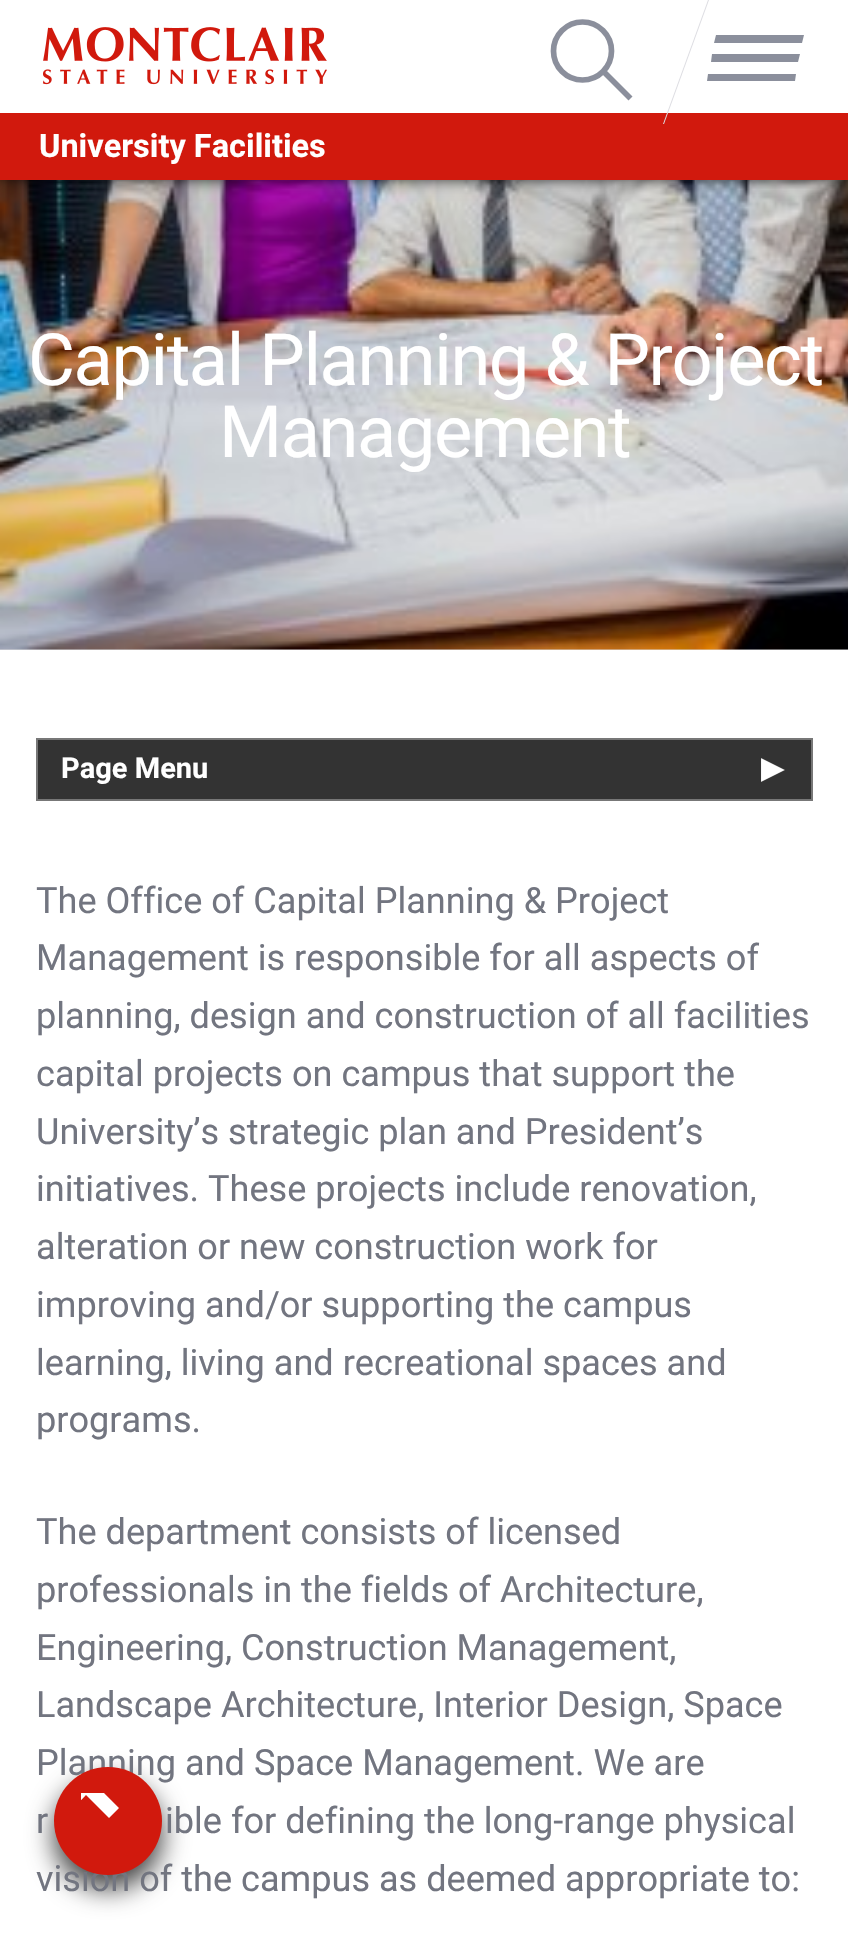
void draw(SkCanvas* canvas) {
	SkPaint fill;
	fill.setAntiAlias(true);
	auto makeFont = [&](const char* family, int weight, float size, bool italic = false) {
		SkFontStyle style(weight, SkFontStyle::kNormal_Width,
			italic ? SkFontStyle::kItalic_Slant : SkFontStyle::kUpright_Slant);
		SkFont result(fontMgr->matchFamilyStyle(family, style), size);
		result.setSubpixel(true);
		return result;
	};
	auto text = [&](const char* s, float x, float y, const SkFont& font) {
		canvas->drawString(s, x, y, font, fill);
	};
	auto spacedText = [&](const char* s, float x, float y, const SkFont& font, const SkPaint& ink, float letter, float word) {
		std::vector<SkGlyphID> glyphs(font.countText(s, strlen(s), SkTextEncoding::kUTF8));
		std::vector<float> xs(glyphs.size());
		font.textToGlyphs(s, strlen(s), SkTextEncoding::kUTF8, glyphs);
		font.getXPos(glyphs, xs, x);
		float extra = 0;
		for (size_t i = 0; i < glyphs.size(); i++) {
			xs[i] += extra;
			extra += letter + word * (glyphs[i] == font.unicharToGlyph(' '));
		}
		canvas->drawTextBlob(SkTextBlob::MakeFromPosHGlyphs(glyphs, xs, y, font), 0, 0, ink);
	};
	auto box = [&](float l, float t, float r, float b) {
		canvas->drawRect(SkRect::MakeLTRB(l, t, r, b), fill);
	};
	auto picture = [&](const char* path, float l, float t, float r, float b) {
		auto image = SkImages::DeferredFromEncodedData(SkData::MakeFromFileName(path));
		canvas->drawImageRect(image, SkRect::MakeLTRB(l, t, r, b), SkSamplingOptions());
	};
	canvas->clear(0xFFFFFFFF);
	fill.setColor(0xFFDBDBDD);
	box(0, 649, 848, 650);
	picture("image1.png", 0, 180, 848, 650);
	fill.setColor(0xBF000000);
	fill.setMaskFilter(SkMaskFilter::MakeBlur(kNormal_SkBlurStyle, 7));
	canvas->drawRect(SkRect::MakeLTRB(0, 0, 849, 180), fill);
	fill.setMaskFilter(nullptr);
	fill.setColor(0xFFFFFFFF);
	box(0, 0, 848, 113);
	fill.setStyle(SkPaint::kStroke_Style);
	fill.setStrokeWidth(5.7f);
	fill.setColor(0xFF8B8F9C);
	canvas->drawCircle(582.5f, 51, 29, fill);
	canvas->drawPath(SkPathBuilder().moveTo(630.5f, 98.5f).lineTo(602, 70).detach(), fill);
	fill.setStyle(SkPaint::kFill_Style);
	fill.setColor(0xFFD1190D);
	box(0, 113, 848, 180);
	fill.setColor(0xFFDDDDE2);
	canvas->drawPath(SkPathBuilder().moveTo(708, 0).lineTo(709, 0).lineTo(664, 124).lineTo(663, 124).close().detach(), fill);
	fill.setColor(0xFF8B8F9C);
	canvas->drawPath(SkPathBuilder().moveTo(795, 81).lineTo(707, 81).lineTo(708, 74).lineTo(796, 74).moveTo(798, 62).lineTo(711, 62).lineTo(712, 54).lineTo(800, 54).moveTo(802, 43).lineTo(714, 43).lineTo(716, 35).lineTo(804, 35).detach(), fill);
	picture("image0.png", 42, 27, 327, 85);
	fill.setColor(0xFF333333);
	canvas->drawRect(SkRect::MakeLTRB(37, 739, 812, 800), fill);
	fill.setStyle(SkPaint::kStroke_Style);
	fill.setStrokeWidth(2);
	fill.setColor(0xFF777777);
	canvas->drawRect(SkRect::MakeLTRB(37, 739, 812, 800), fill);
	fill.setStyle(SkPaint::kFill_Style);
	fill.setColor(0xBF000000);
	fill.setMaskFilter(SkMaskFilter::MakeBlur(kNormal_SkBlurStyle, 13.5f));
	canvas->drawRoundRect(SkRect::MakeLTRB(54, 1781, 162, 1889), 54, 54, fill);
	fill.setMaskFilter(nullptr);
	auto font1 = makeFont("Roboto", 700, 32.5f);
	fill.setColor(0xFFFFFFFF);
	text("University Facilities", 39, 157, font1);
	auto font2 = makeFont("Roboto", 400, 72.25f);
	spacedText("Capital Planning & Project", 28, 385, font2, fill, -1.45f, 0);
	spacedText("Management", 219, 457, font2, fill, -1.45f, 0);
	auto font3 = makeFont("Roboto", 700, 29);
	text("Page Menu", 61, 778, font3);
	auto font4 = makeFont("DejaVu Sans", 700, 29);
	text("▶", 761, 778, font4);
	auto font5 = makeFont("Roboto", 400, 36.1f);
	fill.setColor(0xFF727580);
	text("The Office of Capital Planning & Project", 36, 913, font5);
	text("Management is responsible for all aspects of", 36, 970, font5);
	text("planning, design and construction of all facilities", 36, 1028, font5);
	text("capital projects on campus that support the", 36, 1086, font5);
	text("University’s strategic plan and President’s", 36, 1144, font5);
	text("initiatives. These projects include renovation,", 36, 1201, font5);
	text("alteration or new construction work for", 36, 1259, font5);
	text("improving and/or supporting the campus", 36, 1317, font5);
	text("learning, living and recreational spaces and", 36, 1375, font5);
	text("programs.", 36, 1432, font5);
	text("The department consists of licensed", 36, 1544, font5);
	text("professionals in the fields of Architecture,", 36, 1602, font5);
	text("Engineering, Construction Management,", 36, 1660, font5);
	text("Landscape Architecture, Interior Design, Space", 36, 1717, font5);
	text("Planning and Space Management. We are", 36, 1775, font5);
	text("r", 36, 1833, font5);
	text("ible for defining the long-range physical", 165, 1833, font5);
	text("vision of the campus as deemed appropriate to:", 36, 1891, font5);
	fill.setColor(0xFFD1190D);
	canvas->drawCircle(108, 1821, 54, fill);
	canvas->save();
	canvas->clipRect(SkRect::MakeLTRB(81, 1793, 135, 1846));
	fill.setColor(0xFFFFFFFF);
	canvas->drawPath(SkPathBuilder().moveTo(54, 1808).lineTo(86, 1775).lineTo(119, 1808).lineTo(109, 1818).lineTo(86, 1795).lineTo(64, 1818).close().detach(), fill);
	canvas->restore();
}
